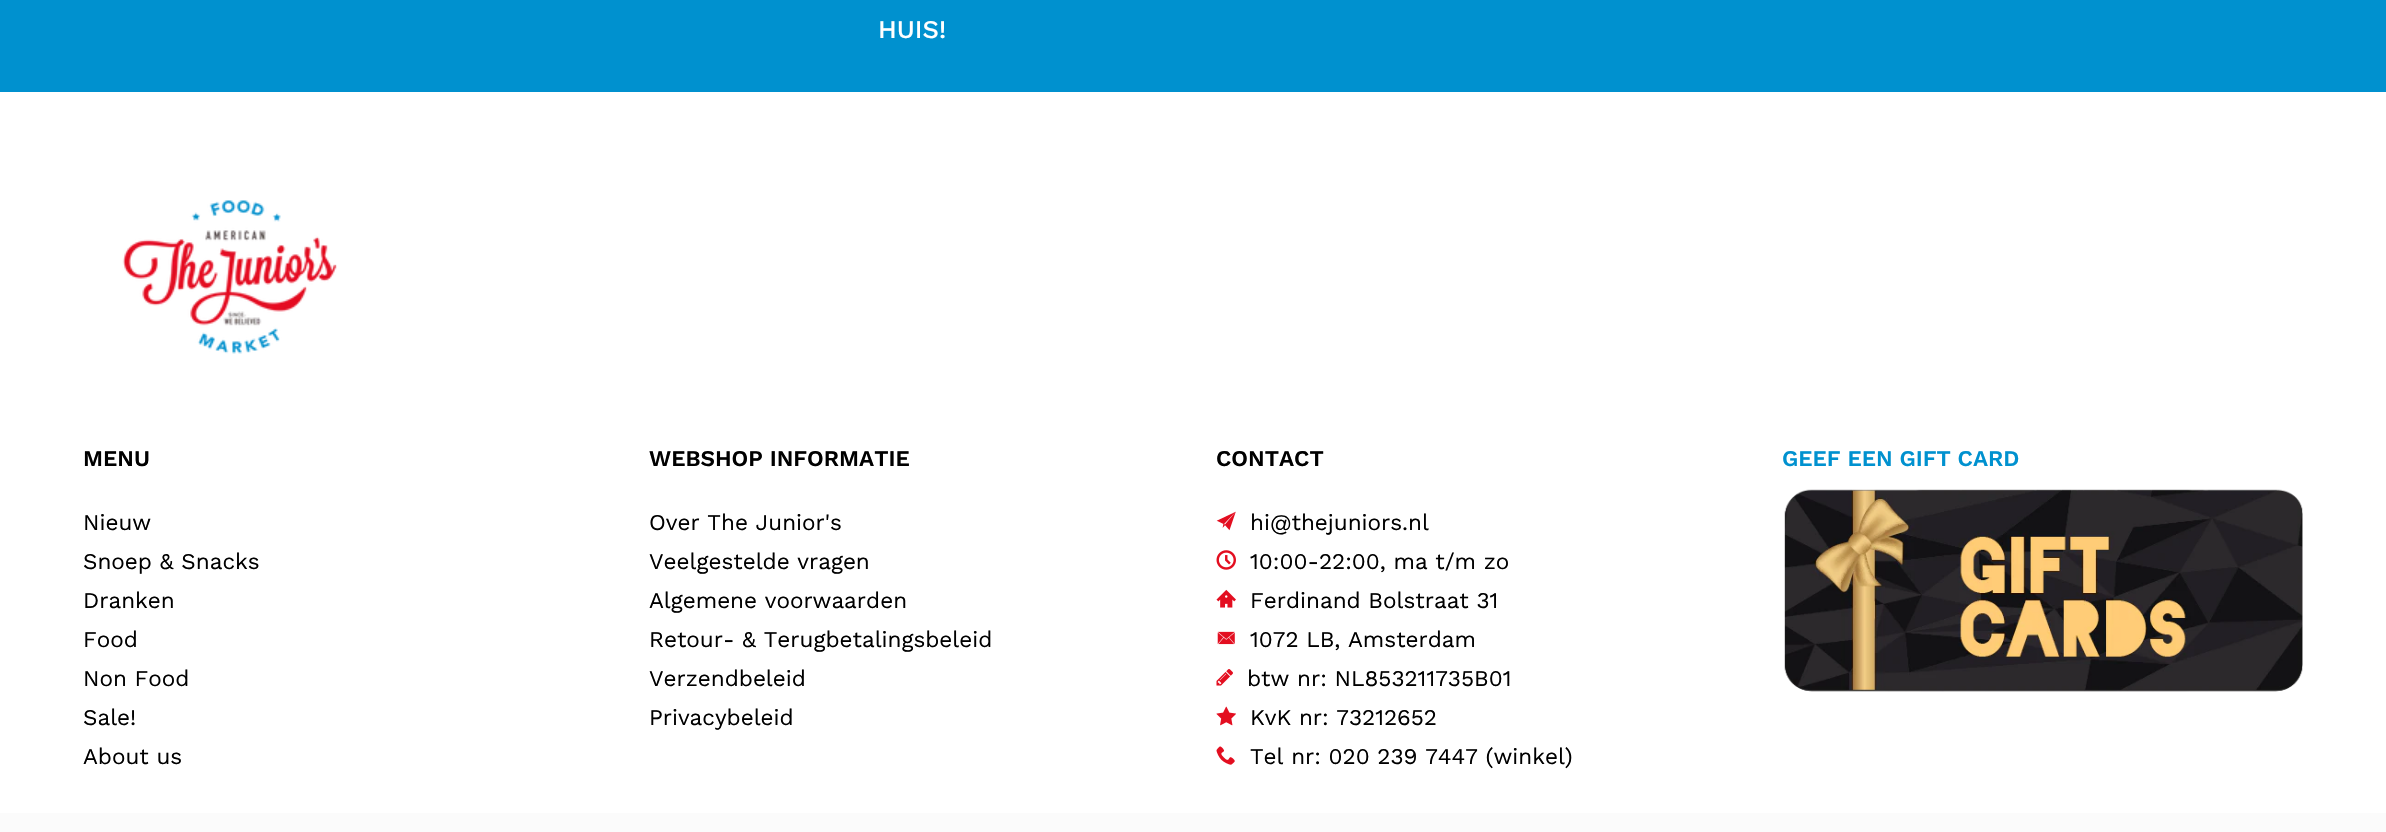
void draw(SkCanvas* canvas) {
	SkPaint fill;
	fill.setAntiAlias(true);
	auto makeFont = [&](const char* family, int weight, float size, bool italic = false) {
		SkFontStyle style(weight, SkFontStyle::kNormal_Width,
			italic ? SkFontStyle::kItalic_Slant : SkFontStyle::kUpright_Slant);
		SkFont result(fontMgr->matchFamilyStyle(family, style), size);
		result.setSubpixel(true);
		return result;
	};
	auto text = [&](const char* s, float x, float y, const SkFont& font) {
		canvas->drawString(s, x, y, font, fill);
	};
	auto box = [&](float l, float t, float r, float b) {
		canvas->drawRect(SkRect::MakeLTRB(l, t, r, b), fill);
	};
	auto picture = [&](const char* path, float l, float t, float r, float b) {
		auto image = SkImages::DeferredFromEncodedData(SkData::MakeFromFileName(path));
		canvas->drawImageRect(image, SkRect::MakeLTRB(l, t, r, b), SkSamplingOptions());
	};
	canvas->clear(0xFFFFFFFF);
	fill.setColor(0xFF0091CF);
	box(0, 0, 2386, 92);
	picture("image0.png", 122, 200, 337, 354);
	picture("image1.png", 1216, 511, 1236, 531);
	picture("image2.png", 1216, 550, 1236, 570);
	picture("image3.png", 1216, 589, 1236, 608);
	picture("image4.png", 1217, 631, 1235, 645);
	picture("image5.png", 1216, 669, 1233, 686);
	picture("image6.png", 1216, 706, 1236, 726);
	picture("image7.png", 1216, 746, 1235, 765);
	picture("image8.png", 1784, 489, 2303, 692);
	fill.setColor(0xFFFBFBFB);
	box(0, 813, 2386, 832);
	auto font1 = makeFont("Work Sans", 500, 25.5f);
	fill.setColor(0xFFFFFFFF);
	text("HUIS!", 878, 38, font1);
	auto font2 = makeFont("Work Sans", 600, 22.5f);
	fill.setColor(0xFF000000);
	text("MENU", 83, 466, font2);
	auto font3 = makeFont("Work Sans", 400, 22.5f);
	text("Nieuw", 83, 530, font3);
	text("Snoep & Snacks", 83, 569, font3);
	text("Dranken", 83, 608, font3);
	text("Food", 83, 647, font3);
	text("Non Food", 83, 686, font3);
	text("Sale!", 83, 725, font3);
	text("About us", 83, 764, font3);
	text("WEBSHOP INFORMATIE", 649, 466, font2);
	text("Over The Junior's", 649, 530, font3);
	text("Veelgestelde vragen", 649, 569, font3);
	text("Algemene voorwaarden", 649, 608, font3);
	text("Retour- & Terugbetalingsbeleid", 649, 647, font3);
	text("Verzendbeleid", 649, 686, font3);
	text("Privacybeleid", 649, 725, font3);
	text("CONTACT", 1216, 466, font2);
	text("hi@thejuniors.nl", 1250, 530, font3);
	text("10:00-22:00, ma t/m zo", 1250, 569, font3);
	text("Ferdinand Bolstraat 31", 1250, 608, font3);
	text("1072 LB, Amsterdam", 1250, 647, font3);
	text("btw nr: NL853211735B01", 1247, 686, font3);
	text("KvK nr: 73212652", 1250, 725, font3);
	text("Tel nr: 020 239 7447 (winkel)", 1250, 764, font3);
	fill.setColor(0xFF0091CF);
	text("GEEF EEN GIFT CARD", 1782, 466, font2);
}
